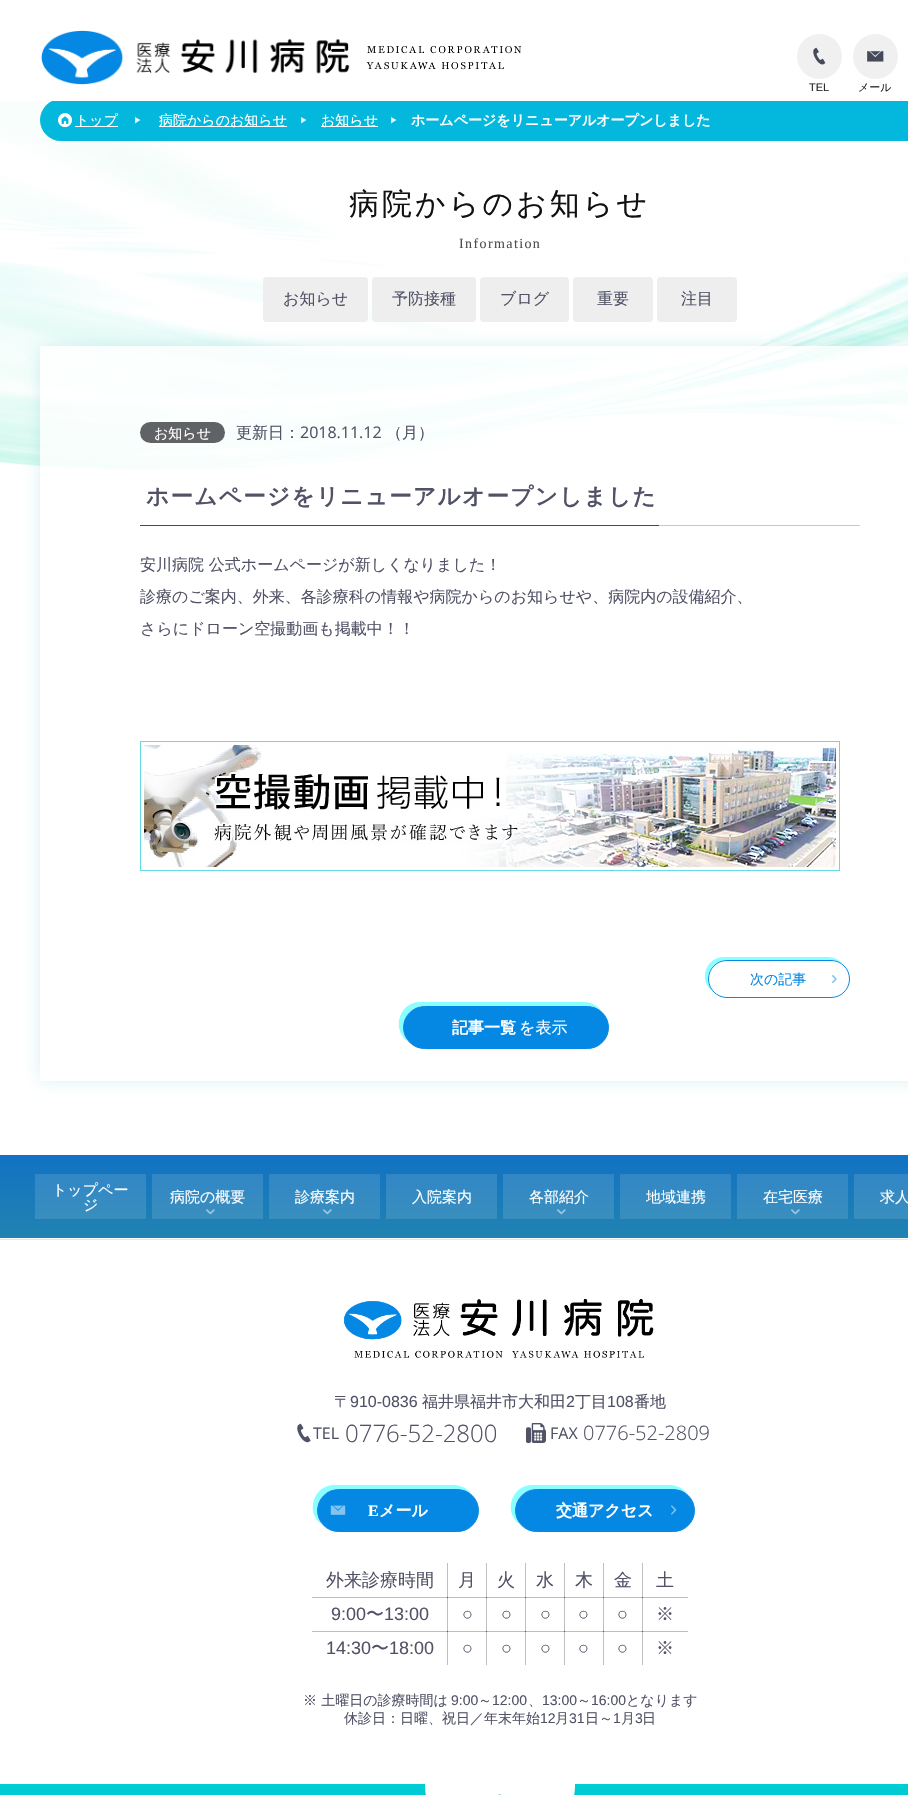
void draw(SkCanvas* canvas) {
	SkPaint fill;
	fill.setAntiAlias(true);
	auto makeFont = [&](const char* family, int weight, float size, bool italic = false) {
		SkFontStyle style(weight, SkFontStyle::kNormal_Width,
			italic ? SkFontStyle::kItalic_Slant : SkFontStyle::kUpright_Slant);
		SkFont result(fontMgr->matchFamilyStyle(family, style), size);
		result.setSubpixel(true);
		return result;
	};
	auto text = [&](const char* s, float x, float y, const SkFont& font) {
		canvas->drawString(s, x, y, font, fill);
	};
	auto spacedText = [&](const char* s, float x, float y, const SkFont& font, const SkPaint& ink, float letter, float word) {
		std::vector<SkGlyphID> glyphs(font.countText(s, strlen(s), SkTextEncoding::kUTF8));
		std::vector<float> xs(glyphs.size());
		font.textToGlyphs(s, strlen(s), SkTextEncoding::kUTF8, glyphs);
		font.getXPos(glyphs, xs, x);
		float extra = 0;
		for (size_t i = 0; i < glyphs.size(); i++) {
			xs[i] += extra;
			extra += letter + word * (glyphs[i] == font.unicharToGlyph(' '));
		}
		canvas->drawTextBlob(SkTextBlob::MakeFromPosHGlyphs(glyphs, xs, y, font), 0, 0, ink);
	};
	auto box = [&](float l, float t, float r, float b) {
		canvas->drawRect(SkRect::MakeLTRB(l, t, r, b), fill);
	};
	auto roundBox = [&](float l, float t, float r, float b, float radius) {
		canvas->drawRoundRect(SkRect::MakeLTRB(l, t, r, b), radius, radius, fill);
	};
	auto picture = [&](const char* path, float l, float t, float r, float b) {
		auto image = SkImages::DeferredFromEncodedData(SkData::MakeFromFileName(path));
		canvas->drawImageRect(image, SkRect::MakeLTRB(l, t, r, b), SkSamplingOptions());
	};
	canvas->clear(0xFFFFFFFF);
	fill.setColor(0xFFBFBFBF);
	box(447, 1563, 448, 1598);
	box(486, 1563, 487, 1598);
	box(525, 1563, 526, 1598);
	box(564, 1563, 565, 1598);
	box(603, 1563, 604, 1598);
	box(642, 1563, 643, 1598);
	box(312, 1597, 448, 1598);
	box(447, 1597, 448, 1632);
	box(447, 1597, 487, 1598);
	fill.setColor(0xFF505050);
	box(447, 1597, 448, 1598);
	fill.setColor(0xFFBFBFBF);
	box(486, 1597, 487, 1632);
	box(486, 1597, 526, 1598);
	fill.setColor(0xFF505050);
	box(486, 1597, 487, 1598);
	fill.setColor(0xFFBFBFBF);
	box(525, 1597, 526, 1632);
	box(525, 1597, 565, 1598);
	fill.setColor(0xFF505050);
	box(525, 1597, 526, 1598);
	fill.setColor(0xFFBFBFBF);
	box(564, 1597, 565, 1632);
	box(564, 1597, 604, 1598);
	fill.setColor(0xFF505050);
	box(564, 1597, 565, 1598);
	fill.setColor(0xFFBFBFBF);
	box(603, 1597, 604, 1632);
	box(603, 1597, 643, 1598);
	fill.setColor(0xFF505050);
	box(603, 1597, 604, 1598);
	fill.setColor(0xFFBFBFBF);
	box(642, 1597, 643, 1632);
	box(312, 1631, 448, 1632);
	box(447, 1631, 448, 1665);
	box(447, 1631, 487, 1632);
	fill.setColor(0xFF505050);
	box(447, 1631, 448, 1632);
	fill.setColor(0xFFBFBFBF);
	box(486, 1631, 487, 1665);
	box(486, 1631, 526, 1632);
	fill.setColor(0xFF505050);
	box(486, 1631, 487, 1632);
	fill.setColor(0xFFBFBFBF);
	box(525, 1631, 526, 1665);
	box(525, 1631, 565, 1632);
	fill.setColor(0xFF505050);
	box(525, 1631, 526, 1632);
	fill.setColor(0xFFBFBFBF);
	box(564, 1631, 565, 1665);
	box(564, 1631, 604, 1632);
	fill.setColor(0xFF505050);
	box(564, 1631, 565, 1632);
	fill.setColor(0xFFBFBFBF);
	box(603, 1631, 604, 1665);
	box(603, 1631, 643, 1632);
	fill.setColor(0xFF505050);
	box(603, 1631, 604, 1632);
	fill.setColor(0xFFBFBFBF);
	box(642, 1631, 643, 1665);
	picture("image0.png", 0, 101, 908, 471);
	fill.setColor(0xFF03B7DD);
	roundBox(40, 99, 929, 141, 21);
	fill.setColor(0xFFFFFFFF);
	box(52, 99, 908, 101);
	picture("image1.png", 41, 30, 350, 85);
	picture("image2.png", 366, 46, 522, 70);
	fill.setColor(0xFFF0F0F0);
	canvas->drawCircle(819.5f, 56.5f, 22.5f, fill);
	picture("image3.png", 813, 47, 826, 65);
	canvas->drawCircle(875.5f, 56.5f, 22.5f, fill);
	picture("image4.png", 867, 51, 884, 62);
	picture("image5.png", 58, 113, 72, 128);
	fill.setColor(0xFFFFFFFF);
	box(75, 126, 118, 127);
	fill.setColor(0xFFE0F6FB);
	canvas->drawPath(SkPathBuilder().moveTo(135, 117).lineTo(140.5f, 120).lineTo(135, 123.5f).close().detach(), fill);
	fill.setColor(0xFFFFFFFF);
	box(159, 126, 287, 127);
	fill.setColor(0xFFE0F6FB);
	canvas->drawPath(SkPathBuilder().moveTo(301, 117).lineTo(306.5f, 120).lineTo(301, 123.5f).close().detach(), fill);
	fill.setColor(0xFFFFFFFF);
	box(321, 126, 378, 127);
	fill.setColor(0xFFE0F6FB);
	canvas->drawPath(SkPathBuilder().moveTo(391, 117).lineTo(396.5f, 120).lineTo(391, 123.5f).close().detach(), fill);
	canvas->save();
	canvas->clipPath(SkPathBuilder(SkPathFillType::kEvenOdd).moveTo(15, 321).lineTo(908, 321).lineTo(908, 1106).lineTo(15, 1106).close().moveTo(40, 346).lineTo(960, 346).lineTo(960, 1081).lineTo(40, 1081).close().detach(), true);
	fill.setColor(0x4064C8C8);
	fill.setMaskFilter(SkMaskFilter::MakeBlur(kNormal_SkBlurStyle, 8));
	canvas->drawRect(SkRect::MakeLTRB(40, 346, 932, 1081), fill);
	fill.setMaskFilter(nullptr);
	canvas->restore();
	fill.setColor(0xFFEEEEEE);
	roundBox(263, 277, 368, 322, 4);
	roundBox(372, 277, 476, 322, 4);
	roundBox(480, 277, 569, 322, 4);
	roundBox(573, 277, 653, 322, 4);
	roundBox(657, 277, 737, 322, 4);
	{
		const SkColor colors[] = {0xBFFFFFFF, 0xFFFFFFFF};
		const float stops[] = {0, 1};
		const SkPoint ends[] = {{500, 346}, {500, 1246}};
		fill.setShader(SkGradientShader::MakeLinear(ends, colors, stops, 2, SkTileMode::kClamp));
		fill.setAlpha(255);
	}
	box(40, 346, 908, 471);
	fill.setShader(nullptr);
	fill.setColor(0xFF616266);
	roundBox(140, 422, 225, 443, 10.5f);
	fill.setColor(0xFF444A59);
	box(140, 525, 659, 526);
	fill.setColor(0x4D444A59);
	box(659, 525, 860, 526);
	picture("image6.png", 140, 741, 840, 871);
	fill.setColor(0xFF8AFFFF);
	canvas->drawPath(SkPathBuilder().moveTo(724, 957).cubicTo(706, 957, 698, 980, 712, 991).cubicTo(710, 988, 708, 983, 708, 979).cubicTo(708, 969, 717, 960, 727, 960).lineTo(831, 960).cubicTo(835, 960, 840, 962, 843, 964).cubicTo(839, 960, 834, 957, 828, 957).close().detach(), fill);
	fill.setColor(0xFFFFFFFF);
	canvas->drawRoundRect(SkRect::MakeLTRB(708.5f, 960.5f, 849.5f, 997.5f), 18.5f, 18.5f, fill);
	fill.setStyle(SkPaint::kStroke_Style);
	fill.setStrokeWidth(1);
	fill.setColor(0xFF0589E3);
	canvas->drawRoundRect(SkRect::MakeLTRB(708.5f, 960.5f, 849.5f, 997.5f), 18.5f, 18.5f, fill);
	picture("image7.png", 832, 975, 837, 984);
	fill.setStyle(SkPaint::kFill_Style);
	fill.setColor(0xFF8AFFFF);
	canvas->drawPath(SkPathBuilder().moveTo(420, 1002).cubicTo(400, 1002, 391, 1028, 407, 1041).cubicTo(405, 1037, 403, 1032, 403, 1028).cubicTo(403, 1016, 413, 1006, 424, 1006).lineTo(588, 1006).cubicTo(592, 1006, 597, 1008, 601, 1010).cubicTo(597, 1005, 590, 1002, 584, 1002).close().detach(), fill);
	fill.setColor(0xFF0588E3);
	canvas->drawRoundRect(SkRect::MakeLTRB(403.5f, 1006.5f, 608.5f, 1048.5f), 21, 21, fill);
	fill.setStyle(SkPaint::kStroke_Style);
	canvas->drawRoundRect(SkRect::MakeLTRB(403.5f, 1006.5f, 608.5f, 1048.5f), 21, 21, fill);
	fill.setStyle(SkPaint::kFill_Style);
	{
		const SkColor colors[] = {0xFF1172C3, 0xFF2183B1};
		const float stops[] = {0, 1};
		const SkPoint ends[] = {{500, 1155}, {500, 1238}};
		fill.setShader(SkGradientShader::MakeLinear(ends, colors, stops, 2, SkTileMode::kClamp));
		fill.setAlpha(255);
	}
	box(0, 1155, 908, 1238);
	{
		const SkColor colors[] = {0xFF2E83CA, 0xFF3C92BA};
		const float stops[] = {0, 1};
		const SkPoint ends[] = {{500, 1155}, {500, 1238}};
		fill.setShader(SkGradientShader::MakeLinear(ends, colors, stops, 2, SkTileMode::kClamp));
		fill.setAlpha(255);
	}
	box(854, 1174, 908, 1219);
	box(737, 1174, 848, 1219);
	box(620, 1174, 731, 1219);
	box(503, 1174, 614, 1219);
	box(386, 1174, 497, 1219);
	box(269, 1174, 380, 1219);
	box(152, 1174, 263, 1219);
	box(35, 1174, 146, 1219);
	picture("image8.png", 206, 1209, 215, 1215);
	picture("image8.png", 323, 1209, 332, 1215);
	picture("image8.png", 557, 1209, 566, 1215);
	picture("image8.png", 791, 1209, 800, 1215);
	fill.setShader(nullptr);
	fill.setColor(0xFFE6E6E6);
	box(0, 1239, 908, 1240);
	picture("image9.png", 344, 1298, 654, 1358);
	picture("image10.png", 297, 1423, 311, 1443);
	picture("image11.png", 526, 1423, 546, 1443);
	fill.setColor(0xFF8AFFFF);
	canvas->drawPath(SkPathBuilder().moveTo(334, 1485).cubicTo(314, 1485, 305, 1511, 321, 1524).cubicTo(319, 1520, 317, 1515, 317, 1510).cubicTo(317, 1499, 327, 1489, 338, 1489).lineTo(458, 1489).cubicTo(462, 1489, 467, 1491, 471, 1493).cubicTo(467, 1488, 460, 1485, 454, 1485).close().detach(), fill);
	fill.setColor(0xFF0588E3);
	canvas->drawRoundRect(SkRect::MakeLTRB(317.5f, 1489.5f, 478.5f, 1531.5f), 21, 21, fill);
	fill.setStyle(SkPaint::kStroke_Style);
	canvas->drawRoundRect(SkRect::MakeLTRB(317.5f, 1489.5f, 478.5f, 1531.5f), 21, 21, fill);
	picture("image12.png", 330, 1505, 346, 1515);
	fill.setStyle(SkPaint::kFill_Style);
	fill.setColor(0xFF8AFFFF);
	canvas->drawPath(SkPathBuilder().moveTo(532, 1485).cubicTo(512, 1485, 503, 1511, 519, 1524).cubicTo(517, 1520, 515, 1515, 515, 1510).cubicTo(515, 1499, 525, 1489, 536, 1489).lineTo(674, 1489).cubicTo(678, 1489, 683, 1491, 687, 1493).cubicTo(683, 1488, 676, 1485, 670, 1485).close().detach(), fill);
	fill.setColor(0xFF0588E3);
	canvas->drawRoundRect(SkRect::MakeLTRB(515.5f, 1489.5f, 694.5f, 1531.5f), 21, 21, fill);
	fill.setStyle(SkPaint::kStroke_Style);
	canvas->drawRoundRect(SkRect::MakeLTRB(515.5f, 1489.5f, 694.5f, 1531.5f), 21, 21, fill);
	picture("image13.png", 671, 1505, 677, 1515);
	fill.setStyle(SkPaint::kFill_Style);
	fill.setColor(0xFFBFBFBF);
	box(642, 1597, 688, 1598);
	fill.setColor(0xFF505050);
	box(642, 1597, 643, 1598);
	fill.setColor(0xFFBFBFBF);
	box(642, 1631, 688, 1632);
	fill.setColor(0xFF505050);
	box(642, 1631, 643, 1632);
	{
		const SkColor colors[] = {0xFF00CCD3, 0xFF03B7DD};
		const float stops[] = {0, 1};
		const SkPoint ends[] = {{500, 1784}, {500, 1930}};
		fill.setShader(SkGradientShader::MakeLinear(ends, colors, stops, 2, SkTileMode::kClamp));
		fill.setAlpha(255);
	}
	box(0, 1784, 908, 1795);
	fill.setShader(nullptr);
	fill.setColor(0xFFFFFFFF);
	canvas->drawPath(SkPathBuilder().moveTo(425, 1784).lineTo(575, 1784).lineTo(575, 1786).cubicTo(575, 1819, 541, 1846, 500, 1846).cubicTo(459, 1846, 425, 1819, 425, 1786).close().detach(), fill);
	picture("image14.png", 498, 1794, 501, 1795);
	auto font1 = makeFont("Liberation Sans", 400, 11);
	fill.setColor(0xFF222222);
	text("TEL", 809, 91, font1);
	auto font2 = makeFont("WenQuanYi Zen Hei", 500, 11);
	text("メール", 858, 91, font2);
	auto font3 = makeFont("WenQuanYi Zen Hei", 500, 14);
	fill.setColor(0xFFFFFFFF);
	text("トップ", 75, 125, font3);
	text("病院からのお知らせ", 159, 125, font3);
	text("お知らせ", 321, 125, font3);
	auto font4 = makeFont("WenQuanYi Zen Hei", 700, 14);
	text("ホームページをリニューアルオープンしました", 411, 125, font4);
	auto font5 = makeFont("WenQuanYi Zen Hei", 500, 30);
	fill.setColor(0xFF111111);
	spacedText("病院からのお知らせ", 349, 214, font5, fill, 3, 0);
	auto font6 = makeFont("Liberation Serif", 400, 14);
	fill.setColor(0xFF4C4C4C);
	spacedText("Information", 459, 248, font6, fill, 1.4f, 0);
	auto font7 = makeFont("WenQuanYi Zen Hei", 500, 16);
	fill.setColor(0xFF515266);
	text("お知らせ", 283, 304, font7);
	text("予防接種", 392, 304, font7);
	text("ブログ", 500, 304, font7);
	text("重要", 597, 304, font7);
	text("注目", 681, 304, font7);
	fill.setColor(0xFFFFFFFF);
	text("お知らせ", 154, 438, font3);
	fill.setColor(0xFF515266);
	text("更新日：", 236, 438, font7);
	auto font8 = makeFont("Open Sans", 400, 16);
	text("2018.11.12", 300, 438, font8);
	text("（月）", 386, 438, font7);
	auto font9 = makeFont("WenQuanYi Zen Hei", 700, 22.5f);
	spacedText("ホームページをリニューアルオープンしました", 146, 504, font9, fill, 1.4f, 0);
	text("安川病院 公式ホームページが新しくなりました！", 140, 570, font7);
	text("診療のご案内、外来、各診療科の情報や病院からのお知らせや、病院内の設備紹介、", 140, 602, font7);
	text("さらにドローン空撮動画も掲載中！！", 140, 634, font7);
	fill.setColor(0xFF0589E3);
	text("次の記事", 750, 984, font3);
	auto font10 = makeFont("WenQuanYi Zen Hei", 700, 16);
	fill.setColor(0xFFFFFFFF);
	text("記事一覧", 452, 1033, font10);
	text("を表示", 519, 1033, font7);
	auto font11 = makeFont("WenQuanYi Zen Hei", 500, 15);
	text("トップペー", 52, 1195, font11);
	text("ジ", 83, 1210, font11);
	text("病院の概要", 170, 1202, font11);
	text("診療案内", 295, 1202, font11);
	text("入院案内", 412, 1202, font11);
	text("各部紹介", 529, 1202, font11);
	text("地域連携", 646, 1202, font11);
	text("在宅医療", 763, 1202, font11);
	text("求人", 880, 1202, font11);
	fill.setColor(0xFF515266);
	text("〒", 334, 1407, font7);
	auto font12 = makeFont("Liberation Sans", 400, 16);
	text("910-0836", 350, 1407, font12);
	text("福井県福井市大和田", 422, 1407, font7);
	text("2", 566, 1407, font12);
	text("丁目", 575, 1407, font7);
	text("108", 607, 1407, font12);
	text("番地", 634, 1407, font7);
	text("TEL", 313, 1439, font8);
	auto font13 = makeFont("Open Sans", 300, 24);
	text("0776-52-2800", 345, 1442, font13);
	text("FAX", 550, 1439, font8);
	auto font14 = makeFont("Open Sans", 300, 20);
	text("0776-52-2809", 583, 1440, font14);
	auto font15 = makeFont("Liberation Serif", 700, 16);
	fill.setColor(0xFFFFFFFF);
	text("E", 368, 1516, font15);
	text("メール", 379, 1516, font10);
	text("交通アクセス", 556, 1516, font10);
	auto font16 = makeFont("WenQuanYi Zen Hei", 500, 18);
	fill.setColor(0xFF515266);
	text("外来診療時間", 326, 1586, font16);
	text("月", 458, 1586, font16);
	text("火", 497, 1586, font16);
	text("水", 536, 1586, font16);
	text("木", 575, 1586, font16);
	text("金", 614, 1586, font16);
	text("土", 656, 1586, font16);
	auto font17 = makeFont("Liberation Sans", 400, 18);
	text("9:00", 331, 1620, font17);
	text("〜", 366, 1620, font16);
	text("13:00", 384, 1620, font17);
	text("○", 462, 1620, font17);
	text("○", 501, 1620, font17);
	text("○", 540, 1620, font17);
	text("○", 578, 1620, font17);
	text("○", 617, 1620, font17);
	text("※", 656, 1620, font16);
	text("14:30", 326, 1654, font17);
	text("〜", 371, 1654, font16);
	text("18:00", 389, 1654, font17);
	text("○", 462, 1654, font17);
	text("○", 501, 1654, font17);
	text("○", 540, 1654, font17);
	text("○", 578, 1654, font17);
	text("○", 617, 1654, font17);
	text("※", 656, 1654, font16);
	text("※ 土曜日の診療時間は", 303, 1705, font3);
	auto font18 = makeFont("Liberation Sans", 400, 14);
	text("9:00", 451, 1705, font18);
	text("～", 478, 1705, font3);
	text("12:00", 492, 1705, font18);
	text("13:00", 542, 1705, font18);
	text("～", 577, 1705, font3);
	text("16:00", 591, 1705, font18);
	text("となります", 626, 1705, font3);
	text("、", 528, 1705, font3);
	text("休診日：日曜、祝日／年末年始", 344, 1723, font3);
	text("12", 540, 1723, font18);
	text("月", 555, 1723, font3);
	text("31", 569, 1723, font18);
	text("日～", 585, 1723, font3);
	text("1", 613, 1723, font18);
	text("月", 621, 1723, font3);
	text("3", 635, 1723, font18);
	text("日", 642, 1723, font3);
}
